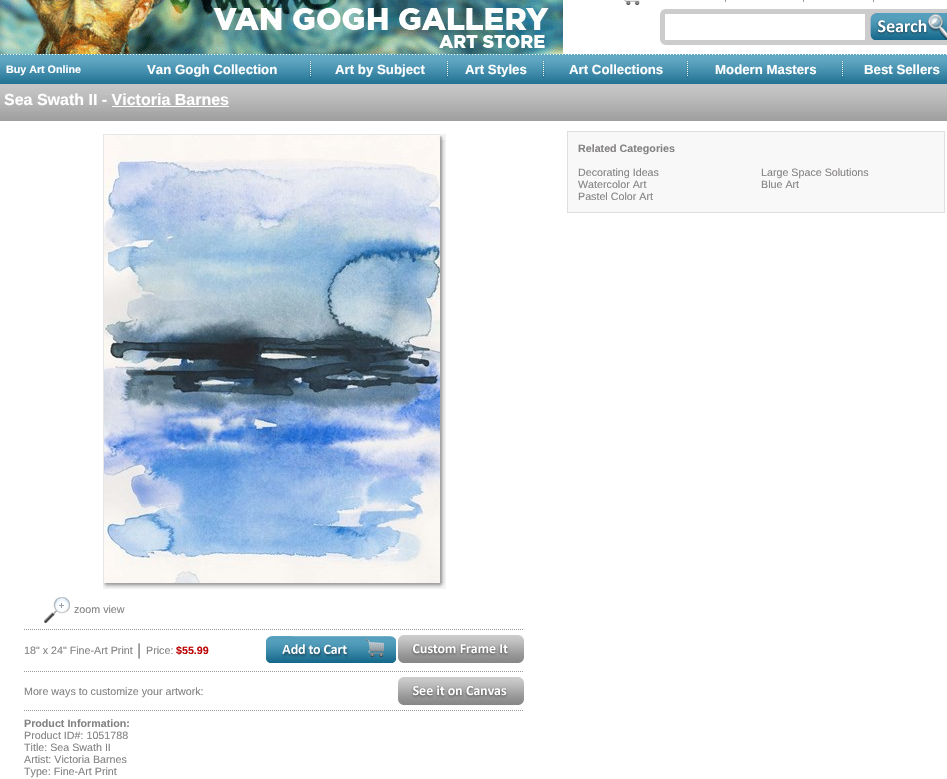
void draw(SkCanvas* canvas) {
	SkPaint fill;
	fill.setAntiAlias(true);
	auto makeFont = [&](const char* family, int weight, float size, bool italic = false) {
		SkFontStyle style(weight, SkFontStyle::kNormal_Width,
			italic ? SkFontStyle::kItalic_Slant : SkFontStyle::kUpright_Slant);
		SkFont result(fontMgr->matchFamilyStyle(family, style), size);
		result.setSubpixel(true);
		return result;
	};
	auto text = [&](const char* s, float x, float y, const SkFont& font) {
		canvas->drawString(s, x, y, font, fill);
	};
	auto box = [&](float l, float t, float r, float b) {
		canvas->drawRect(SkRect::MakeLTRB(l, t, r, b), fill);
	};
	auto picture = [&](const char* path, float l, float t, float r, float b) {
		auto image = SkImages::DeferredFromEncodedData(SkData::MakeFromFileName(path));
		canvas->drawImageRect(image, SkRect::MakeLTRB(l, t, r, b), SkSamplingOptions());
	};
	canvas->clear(0xFFFFFFFF);
	picture("image0.png", 0, 0, 563, 54);
	picture("image1.png", 624, 0, 640, 5);
	fill.setColor(0xFF999999);
	box(725, 0, 726, 2);
	box(803, 0, 804, 2);
	box(873, 0, 874, 2);
	picture("image2.png", 660, 9, 665, 45);
	picture("image3.png", 665, 9, 865, 45);
	picture("image4.png", 865, 9, 947, 45);
	picture("image5.png", 0, 54, 947, 84);
	picture("image6.png", 309, 60, 312, 78);
	picture("image6.png", 446, 60, 449, 78);
	picture("image6.png", 542, 60, 545, 78);
	picture("image6.png", 686, 60, 689, 78);
	picture("image6.png", 841, 60, 844, 78);
	picture("image7.png", 0, 84, 947, 121);
	fill.setColor(0xFFFFFFFF);
	box(112, 106, 229, 107);
	fill.setColor(0xFFF9F8F8);
	canvas->drawRect(SkRect::MakeLTRB(567.5f, 131.5f, 944.5f, 212.5f), fill);
	fill.setStyle(SkPaint::kStroke_Style);
	fill.setStrokeWidth(1);
	fill.setColor(0xFFE1DEDE);
	canvas->drawRect(SkRect::MakeLTRB(567.5f, 131.5f, 944.5f, 212.5f), fill);
	fill.setStyle(SkPaint::kFill_Style);
	fill.setColor(0xFFE7E7E7);
	box(103, 134, 440, 135);
	box(103, 134, 104, 583);
	picture("image8.png", 104, 135, 440, 583);
	picture("image9.png", 440, 134, 446, 583);
	picture("image10.png", 440, 134, 445, 140);
	picture("image11.png", 103, 583, 440, 589);
	picture("image12.png", 103, 583, 107, 588);
	picture("image13.png", 440, 583, 446, 589);
	picture("image14.png", 44, 597, 70, 623);
	fill.setStyle(SkPaint::kStroke_Style);
	fill.setColor(0xFF999999);
	fill.setPathEffect(SkDashPathEffect::Make({{1, 1}}, 0));
	canvas->drawPath(SkPathBuilder().moveTo(24, 629.5f).lineTo(524, 629.5f).detach(), fill);
	fill.setPathEffect(nullptr);
	picture("image15.png", 266, 636, 396, 663);
	picture("image16.png", 398, 635, 524, 663);
	fill.setPathEffect(SkDashPathEffect::Make({{1, 1}}, 0));
	canvas->drawPath(SkPathBuilder().moveTo(24, 671.5f).lineTo(524, 671.5f).detach(), fill);
	fill.setPathEffect(nullptr);
	picture("image17.png", 398, 677, 524, 705);
	fill.setPathEffect(SkDashPathEffect::Make({{1, 1}}, 0));
	canvas->drawPath(SkPathBuilder().moveTo(24, 710.5f).lineTo(524, 710.5f).detach(), fill);
	fill.setPathEffect(nullptr);
	auto font1 = makeFont("Liberation Sans", 700, 10.7f);
	fill.setStyle(SkPaint::kFill_Style);
	fill.setColor(0xFFFFFFFF);
	text("Buy Art Online", 6, 73, font1);
	auto font2 = makeFont("Liberation Sans", 700, 13.25f);
	text("Van Gogh Collection", 147, 74, font2);
	text("Art by Subject", 335, 74, font2);
	text("Art Styles", 465, 74, font2);
	text("Art Collections", 569, 74, font2);
	text("Modern Masters", 715, 74, font2);
	text("Best Sellers", 864, 74, font2);
	auto font3 = makeFont("Liberation Sans", 700, 16);
	text("Sea Swath II - Victoria Barnes", 4, 105, font3);
	fill.setColor(0xFF848283);
	text("Related Categories", 578, 152, font1);
	auto font4 = makeFont("Liberation Sans", 400, 10.7f);
	text("Decorating Ideas", 578, 176, font4);
	text("Large Space Solutions", 761, 176, font4);
	text("Watercolor Art", 578, 188, font4);
	text("Blue Art", 761, 188, font4);
	text("Pastel Color Art", 578, 200, font4);
	text("zoom view", 74, 613, font4);
	text("18\" x 24\" Fine-Art Print", 24, 654, font4);
	auto font5 = makeFont("Liberation Sans", 400, 16);
	text("|", 137, 655, font5);
	text("Price:", 146, 654, font4);
	fill.setColor(0xFFBC0404);
	text("$55.99", 176, 654, font1);
	fill.setColor(0xFF848283);
	text("More ways to customize your artwork:", 24, 695, font4);
	text("Product Information:", 24, 727, font1);
	text("Product ID#: 1051788", 24, 739, font4);
	text("Title: Sea Swath II", 24, 751, font4);
	text("Artist: Victoria Barnes", 24, 763, font4);
	text("Type: Fine-Art Print", 24, 775, font4);
}
